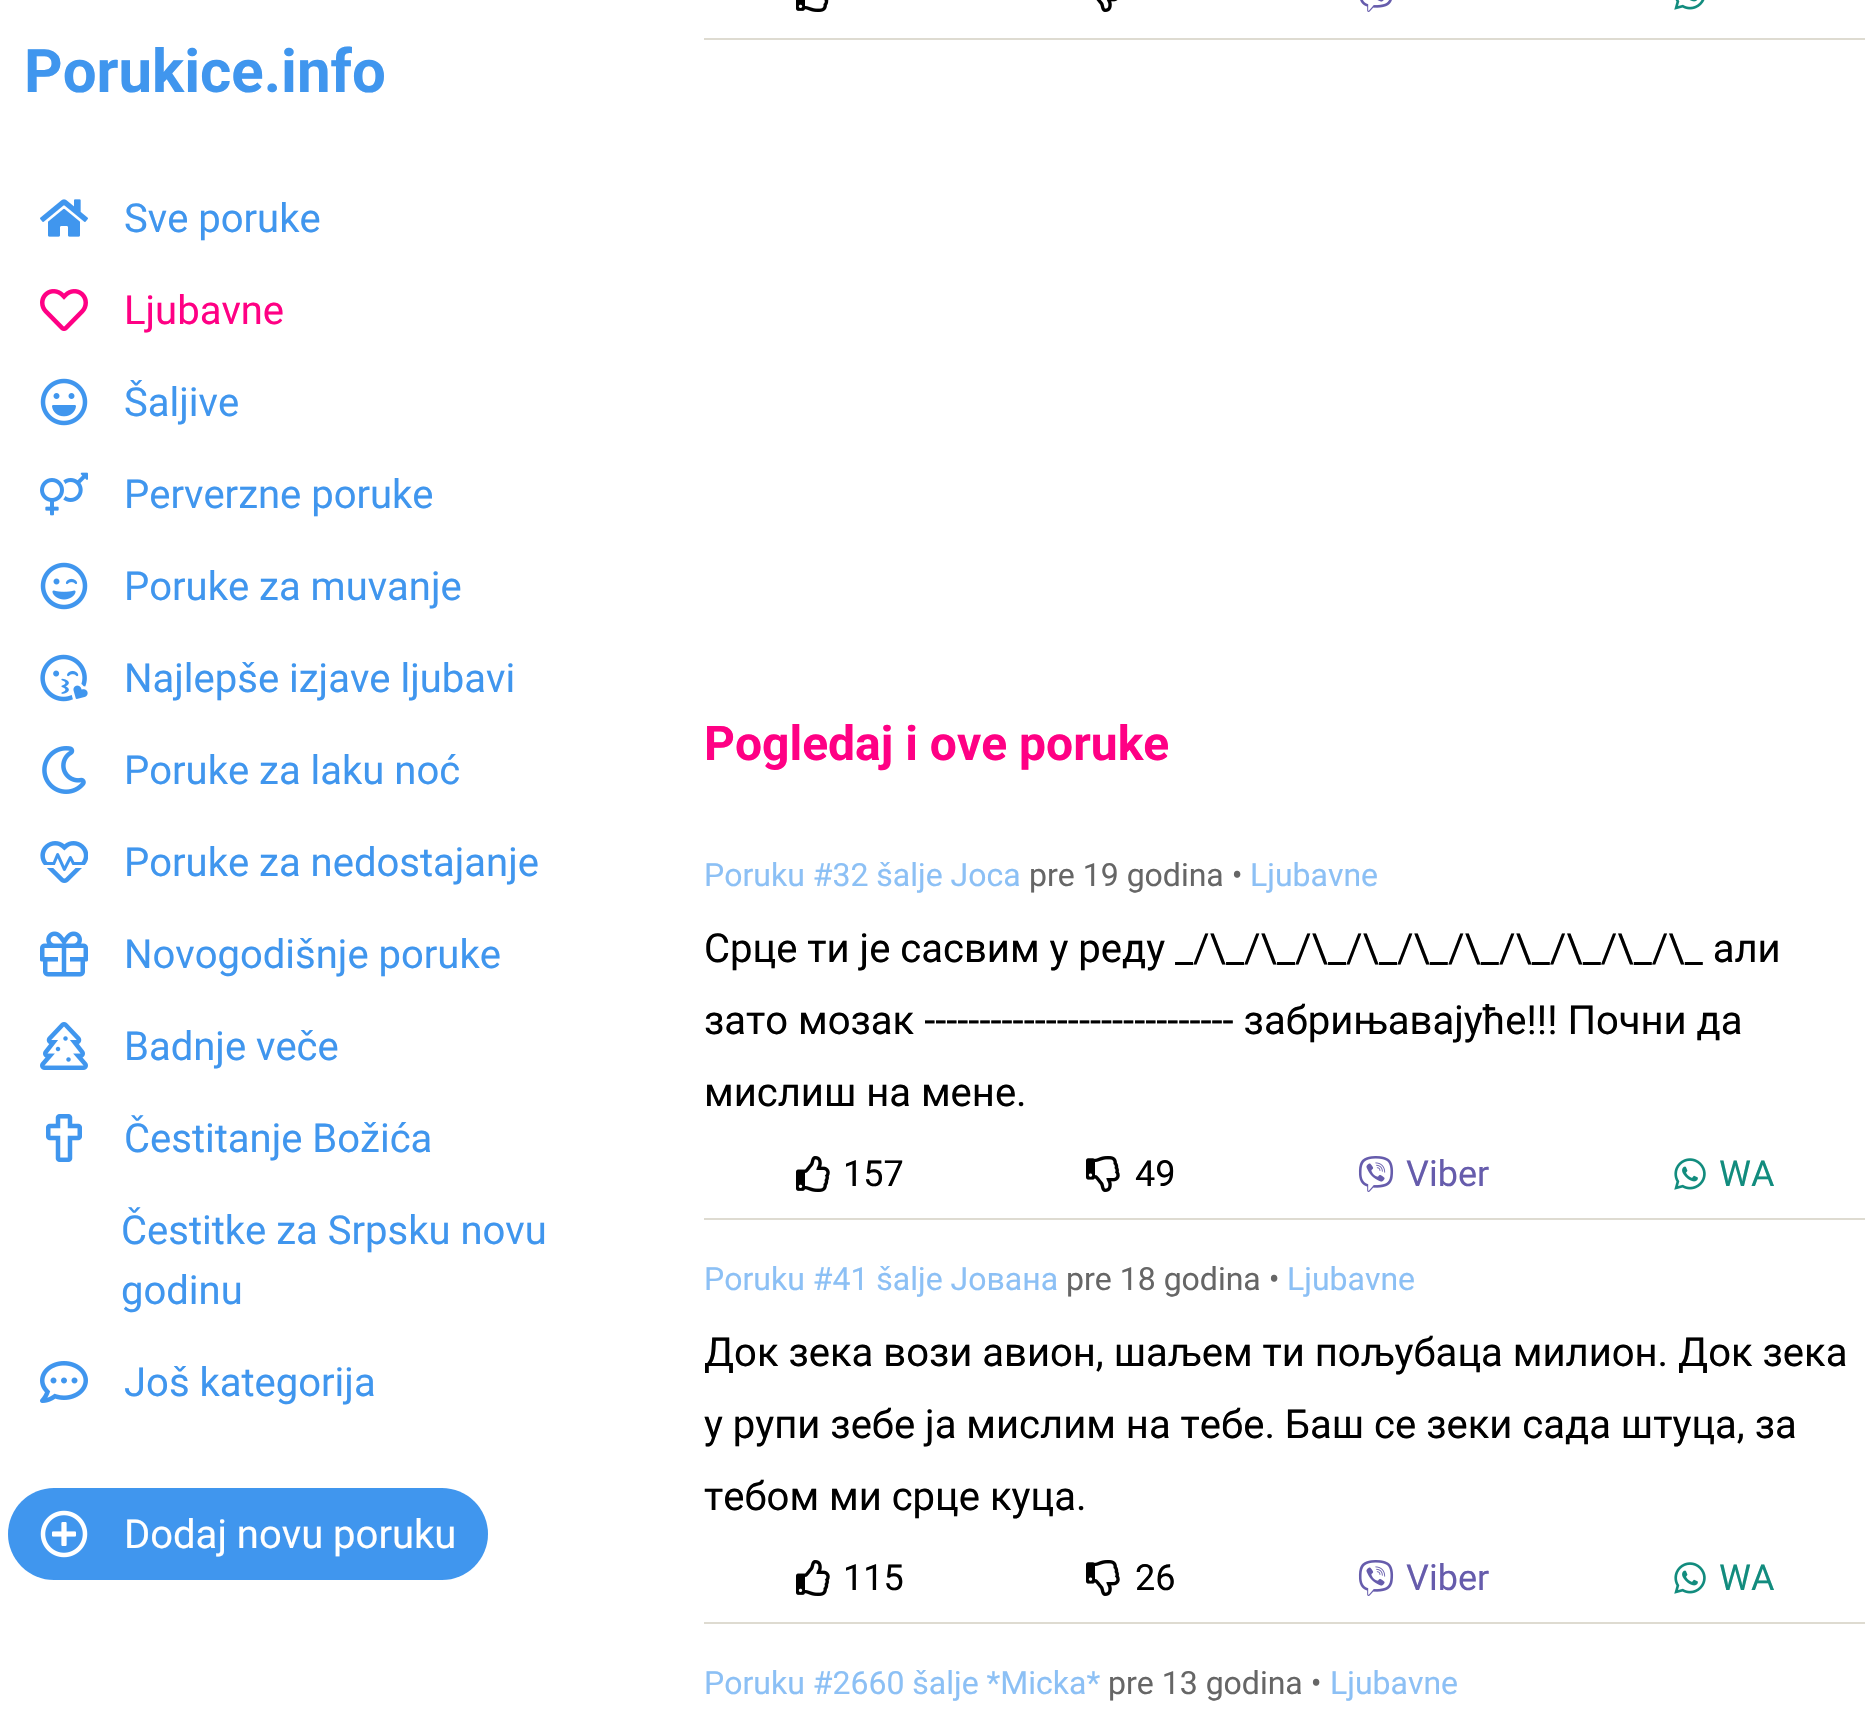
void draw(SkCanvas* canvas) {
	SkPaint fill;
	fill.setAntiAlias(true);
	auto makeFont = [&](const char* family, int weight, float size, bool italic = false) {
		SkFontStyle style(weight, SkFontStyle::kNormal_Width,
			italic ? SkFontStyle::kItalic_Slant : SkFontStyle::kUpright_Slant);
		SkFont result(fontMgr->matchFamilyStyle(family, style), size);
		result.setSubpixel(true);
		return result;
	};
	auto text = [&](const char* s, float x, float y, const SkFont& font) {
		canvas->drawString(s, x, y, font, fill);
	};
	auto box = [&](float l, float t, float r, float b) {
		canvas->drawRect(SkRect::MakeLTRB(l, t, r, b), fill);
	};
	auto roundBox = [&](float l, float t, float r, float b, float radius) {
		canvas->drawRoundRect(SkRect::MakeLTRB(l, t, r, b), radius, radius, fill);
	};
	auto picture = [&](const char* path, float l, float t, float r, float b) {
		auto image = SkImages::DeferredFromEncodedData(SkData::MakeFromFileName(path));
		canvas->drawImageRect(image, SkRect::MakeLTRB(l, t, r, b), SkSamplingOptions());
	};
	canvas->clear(0xFFFFFFFF);
	picture("image0.png", 40, 199, 88, 237);
	picture("image1.png", 40, 289, 88, 331);
	picture("image2.png", 40, 378, 88, 426);
	picture("image3.png", 40, 472, 88, 516);
	picture("image4.png", 40, 562, 88, 610);
	picture("image5.png", 40, 654, 88, 702);
	picture("image6.png", 42, 746, 86, 794);
	picture("image7.png", 40, 841, 88, 883);
	picture("image8.png", 40, 931, 88, 977);
	picture("image9.png", 40, 1022, 88, 1070);
	picture("image10.png", 46, 1114, 82, 1162);
	picture("image11.png", 40, 1361, 88, 1403);
	fill.setColor(0xFF4096EE);
	roundBox(8, 1488, 488, 1580, 46);
	picture("image12.png", 40, 1510, 88, 1558);
	fill.setColor(0xFFDEDBD1);
	box(704, 38, 1865, 40);
	picture("image13.png", 796, 0, 829, 12);
	picture("image14.png", 1096, 0, 1118, 12);
	picture("image15.png", 1360, 0, 1392, 12);
	picture("image16.png", 1674, 0, 1705, 10);
	box(704, 1218, 1865, 1220);
	picture("image17.png", 796, 1156, 830, 1192);
	picture("image18.png", 1086, 1156, 1120, 1192);
	picture("image19.png", 1358, 1156, 1394, 1192);
	picture("image20.png", 1674, 1158, 1706, 1190);
	box(704, 1622, 1865, 1624);
	picture("image17.png", 796, 1560, 830, 1596);
	picture("image18.png", 1086, 1560, 1120, 1596);
	picture("image19.png", 1358, 1560, 1394, 1596);
	picture("image20.png", 1674, 1562, 1706, 1594);
	auto font1 = makeFont("Roboto", 700, 60);
	fill.setColor(0xFF4096EE);
	text("Porukice.info", 24, 92, font1);
	auto font2 = makeFont("Roboto", 400, 40);
	text("Sve poruke", 124, 232, font2);
	fill.setColor(0xFFFF0084);
	text("Ljubavne", 124, 324, font2);
	fill.setColor(0xFF4096EE);
	text("Šaljive", 124, 416, font2);
	text("Perverzne poruke", 124, 508, font2);
	text("Poruke za muvanje", 124, 600, font2);
	text("Najlepše izjave ljubavi", 124, 692, font2);
	text("Poruke za laku noć", 124, 784, font2);
	text("Poruke za nedostajanje", 124, 876, font2);
	text("Novogodišnje poruke", 124, 968, font2);
	text("Badnje veče", 124, 1060, font2);
	text("Čestitanje Božića", 124, 1152, font2);
	text("Čestitke za Srpsku novu", 121, 1244, font2);
	text("godinu", 121, 1304, font2);
	text("Još kategorija", 124, 1396, font2);
	fill.setColor(0xFFFFFFFF);
	text("Dodaj novu poruku", 124, 1548, font2);
	auto font3 = makeFont("Roboto", 700, 48);
	fill.setColor(0xFFFF0084);
	text("Pogledaj i ove poruke", 704, 760, font3);
	auto font4 = makeFont("Roboto", 400, 32);
	fill.setColor(0xFF8CC0F5);
	text("Poruku #32 šalje Joca", 704, 886, font4);
	fill.setColor(0xFF666666);
	text("pre 19 godina •", 1029, 886, font4);
	fill.setColor(0xFF8CC0F5);
	text("Ljubavne", 1250, 886, font4);
	fill.setColor(0xFF000000);
	text("Срце ти је сасвим у реду _/\\_/\\_/\\_/\\_/\\_/\\_/\\_/\\_/\\_/\\_ али", 704, 962, font2);
	text("зато мозак ---------------------------- забрињавајуће!!! Почни да", 704, 1034, font2);
	text("мислиш на мене.", 704, 1106, font2);
	auto font5 = makeFont("Roboto", 400, 36);
	text("157", 843, 1186, font5);
	text("49", 1135, 1186, font5);
	fill.setColor(0xFF665CAC);
	text("Viber", 1406, 1186, font5);
	fill.setColor(0xFF128C7E);
	text("WA", 1719, 1186, font5);
	fill.setColor(0xFF8CC0F5);
	text("Poruku #41 šalje Јована", 704, 1290, font4);
	fill.setColor(0xFF666666);
	text("pre 18 godina •", 1066, 1290, font4);
	fill.setColor(0xFF8CC0F5);
	text("Ljubavne", 1287, 1290, font4);
	fill.setColor(0xFF000000);
	text("Док зека вози авион, шаљем ти пољубаца милион. Док зека", 704, 1366, font2);
	text("у рупи зебе ја мислим на тебе. Баш се зеки сада штуца, за", 704, 1438, font2);
	text("тебом ми срце куца.", 704, 1510, font2);
	text("115", 843, 1590, font5);
	text("26", 1135, 1590, font5);
	fill.setColor(0xFF665CAC);
	text("Viber", 1406, 1590, font5);
	fill.setColor(0xFF128C7E);
	text("WA", 1719, 1590, font5);
	fill.setColor(0xFF8CC0F5);
	text("Poruku #2660 šalje *Micka*", 704, 1694, font4);
	fill.setColor(0xFF666666);
	text("pre 13 godina •", 1108, 1694, font4);
	fill.setColor(0xFF8CC0F5);
	text("Ljubavne", 1330, 1694, font4);
}
